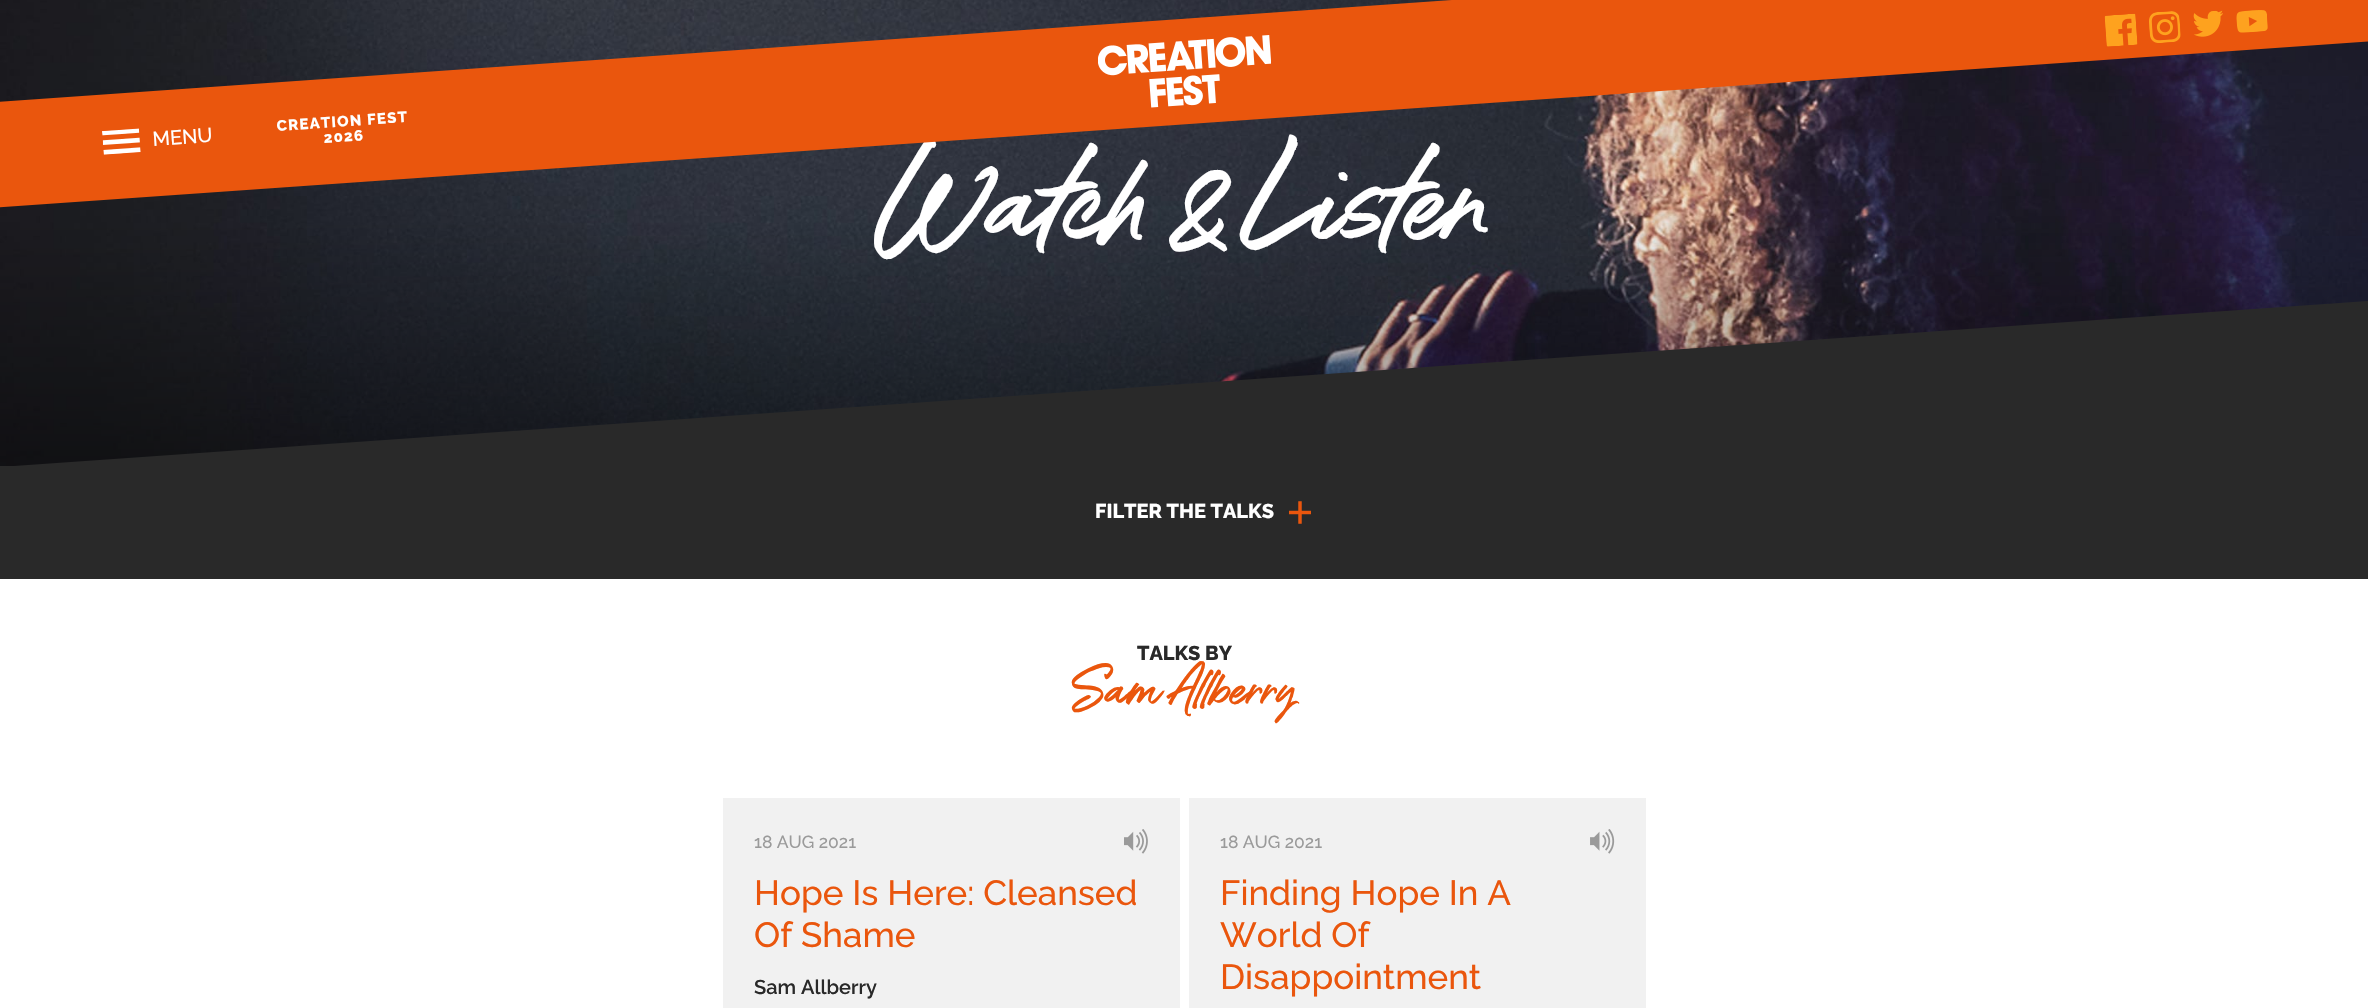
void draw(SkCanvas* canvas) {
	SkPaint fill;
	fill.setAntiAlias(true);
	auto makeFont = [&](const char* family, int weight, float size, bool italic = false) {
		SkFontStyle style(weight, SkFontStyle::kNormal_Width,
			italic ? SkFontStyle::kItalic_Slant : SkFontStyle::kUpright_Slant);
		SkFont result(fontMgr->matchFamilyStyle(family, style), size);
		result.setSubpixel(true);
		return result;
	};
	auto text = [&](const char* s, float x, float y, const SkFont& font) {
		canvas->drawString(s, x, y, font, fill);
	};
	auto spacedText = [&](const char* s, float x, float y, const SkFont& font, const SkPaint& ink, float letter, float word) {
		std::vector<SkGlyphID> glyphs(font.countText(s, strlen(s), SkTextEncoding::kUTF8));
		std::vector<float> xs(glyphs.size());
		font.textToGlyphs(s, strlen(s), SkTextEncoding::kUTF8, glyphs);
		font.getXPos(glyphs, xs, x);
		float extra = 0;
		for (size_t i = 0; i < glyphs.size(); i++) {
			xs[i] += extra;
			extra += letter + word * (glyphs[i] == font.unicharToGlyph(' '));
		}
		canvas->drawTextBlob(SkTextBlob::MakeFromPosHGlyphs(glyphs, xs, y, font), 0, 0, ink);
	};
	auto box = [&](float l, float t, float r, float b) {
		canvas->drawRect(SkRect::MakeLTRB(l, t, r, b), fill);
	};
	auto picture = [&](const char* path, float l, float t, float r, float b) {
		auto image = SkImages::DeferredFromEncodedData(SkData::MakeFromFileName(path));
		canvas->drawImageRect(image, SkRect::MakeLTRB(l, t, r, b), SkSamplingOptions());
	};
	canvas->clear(0xFFFFFFFF);
	picture("image6.png", 0, 0, 2368, 466);
	fill.setColor(0xFF292929);
	box(0, 466, 2368, 579);
	canvas->drawPath(SkPathBuilder(SkPathFillType::kEvenOdd).moveTo(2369, 301).lineTo(0, 467).lineTo(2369, 467).close().detach(), fill);
	picture("image7.png", 1289, 501, 1311, 524);
	fill.setColor(0xFFF1F1F1);
	box(723, 798, 1180, 1008);
	picture("image8.png", 1124, 829, 1148, 854);
	box(1189, 798, 1646, 1008);
	picture("image9.png", 1590, 829, 1615, 854);
	auto font1 = makeFont("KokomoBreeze", 400, 187.5f);
	fill.setColor(0xFFFFFFFF);
	text("Watch & Listen", 881, 234, font1);
	fill.setColor(0xFFEA560D);
	canvas->drawPath(SkPathBuilder().moveTo(-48, 105).lineTo(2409, -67).lineTo(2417, 38).lineTo(-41, 210).close().detach(), fill);
	picture("image3.png", 2236, 10, 2268, 33);
	picture("image2.png", 2193, 10, 2223, 37);
	picture("image1.png", 2149, 11, 2181, 43);
	picture("image0.png", 2104, 13, 2138, 47);
	picture("image4.png", 1098, 35, 1271, 108);
	auto font2 = makeFont("Raleway", 800, 15);
	fill.setColor(0xFFFFFFFF);
	canvas->save();
	canvas->rotate(-4, 324, 143);
	spacedText("2026", 324, 143, font2, fill, 1.25f, 0);
	canvas->restore();
	canvas->save();
	canvas->rotate(-4, 277, 131);
	spacedText("CREATION FEST", 277, 131, font2, fill, 1.25f, 0);
	canvas->restore();
	auto font3 = makeFont("Raleway", 500, 20);
	canvas->save();
	canvas->rotate(-4, 153, 146);
	text("MENU", 153, 146, font3);
	canvas->restore();
	picture("image5.png", 102, 128, 141, 155);
	auto font4 = makeFont("Raleway", 800, 20);
	text("FILTER THE TALKS", 1095, 518, font4);
	fill.setColor(0xFF292929);
	text("TALKS BY", 1137, 660, font4);
	auto font5 = makeFont("KokomoBreeze", 400, 75);
	fill.setColor(0xFFEA560D);
	text("Sam Allberry", 1073, 702, font5);
	auto font6 = makeFont("Raleway", 500, 17.5f);
	fill.setColor(0xFF9A9A9A);
	text("18 AUG 2021", 754, 848, font6);
	auto font7 = makeFont("Raleway", 500, 35);
	fill.setColor(0xFFEA560D);
	text("Hope Is Here: Cleansed", 754, 905, font7);
	text("Of Shame", 754, 947, font7);
	auto font8 = makeFont("Raleway", 600, 20);
	fill.setColor(0xFF292929);
	text("Sam Allberry", 754, 994, font8);
	fill.setColor(0xFF9A9A9A);
	text("18 AUG 2021", 1220, 848, font6);
	fill.setColor(0xFFEA560D);
	text("Finding Hope In A", 1220, 905, font7);
	text("World Of", 1220, 947, font7);
	text("Disappointment", 1220, 989, font7);
}
